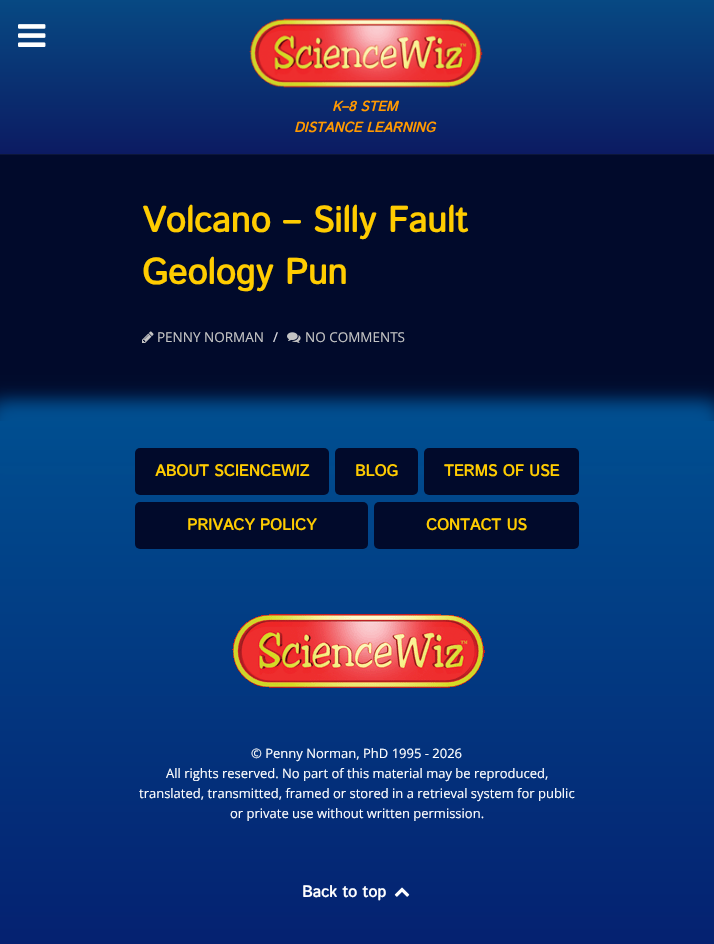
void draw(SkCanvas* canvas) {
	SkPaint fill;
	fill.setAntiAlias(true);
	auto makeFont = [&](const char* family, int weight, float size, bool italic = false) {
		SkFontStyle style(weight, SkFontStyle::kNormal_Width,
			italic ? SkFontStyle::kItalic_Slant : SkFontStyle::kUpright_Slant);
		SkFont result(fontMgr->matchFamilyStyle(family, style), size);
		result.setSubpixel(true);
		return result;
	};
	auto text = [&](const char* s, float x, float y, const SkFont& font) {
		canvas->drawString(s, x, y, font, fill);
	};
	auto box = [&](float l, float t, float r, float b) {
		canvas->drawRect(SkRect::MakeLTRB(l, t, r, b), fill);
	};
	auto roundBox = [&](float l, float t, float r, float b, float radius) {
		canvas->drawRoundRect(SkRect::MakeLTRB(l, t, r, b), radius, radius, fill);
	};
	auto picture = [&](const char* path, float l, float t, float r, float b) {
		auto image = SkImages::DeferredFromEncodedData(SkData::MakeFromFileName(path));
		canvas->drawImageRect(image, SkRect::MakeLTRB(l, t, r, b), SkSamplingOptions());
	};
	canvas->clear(0xFF010A2B);
	{
		const SkColor colors[] = {0xFF074983, 0xFF0C1B62};
		const float stops[] = {0, 1};
		const SkPoint ends[] = {{357, 0}, {357, 154}};
		fill.setShader(SkGradientShader::MakeLinear(ends, colors, stops, 2, SkTileMode::kClamp));
		fill.setAlpha(255);
	}
	box(0, 0, 714, 154);
	picture("image0.png", 18, 24, 46, 47);
	fill.setShader(nullptr);
	fill.setColor(0xFF0C1639);
	box(0, 154, 714, 155);
	picture("image1.png", 249, 18, 483, 88);
	picture("image2.png", 142, 331, 154, 343);
	picture("image3.png", 287, 332, 301, 343);
	fill.setColor(0xFF014E90);
	fill.setMaskFilter(SkMaskFilter::MakeBlur(kNormal_SkBlurStyle, 10));
	canvas->drawRect(SkRect::MakeLTRB(-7, 405, 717, 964), fill);
	fill.setMaskFilter(nullptr);
	{
		const SkColor colors[] = {0xFF004E90, 0xFF051F6F};
		const float stops[] = {0, 1};
		const SkPoint ends[] = {{357, 421}, {357, 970}};
		fill.setShader(SkGradientShader::MakeLinear(ends, colors, stops, 2, SkTileMode::kClamp));
		fill.setAlpha(255);
	}
	box(0, 421, 714, 944);
	canvas->save();
	canvas->clipPath(SkPathBuilder(SkPathFillType::kEvenOdd).moveTo(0, 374).lineTo(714, 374).lineTo(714, 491).lineTo(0, 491).close().moveTo(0, 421).lineTo(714, 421).lineTo(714, 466).lineTo(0, 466).close().detach(), true);
	fill.setShader(nullptr);
	fill.setColor(0xFF014E90);
	fill.setMaskFilter(SkMaskFilter::MakeBlur(kNormal_SkBlurStyle, 10));
	canvas->drawRect(SkRect::MakeLTRB(-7, 405, 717, 460), fill);
	fill.setMaskFilter(nullptr);
	canvas->restore();
	fill.setColor(0xFF010A2B);
	roundBox(135, 448, 329, 495, 5);
	roundBox(335, 448, 418, 495, 5);
	roundBox(424, 448, 579, 495, 5);
	roundBox(135, 502, 368, 549, 5);
	roundBox(374, 502, 579, 549, 5);
	picture("image4.png", 232, 614, 485, 688);
	picture("image5.png", 394, 887, 410, 897);
	auto font1 = makeFont("Istok Web", 700, 14, true);
	fill.setColor(0xFFFF9900);
	text("K–8 STEM", 332, 111, font1);
	text("DISTANCE LEARNING", 294, 132, font1);
	auto font2 = makeFont("Istok Web", 700, 36);
	fill.setColor(0xFFFFCC00);
	text("Volcano – Silly Fault", 142, 232, font2);
	text("Geology Pun", 142, 284, font2);
	auto font3 = makeFont("Open Sans", 400, 13.5f);
	fill.setColor(0xFFC4C4C4);
	text("PENNY NORMAN", 157, 342, font3);
	fill.setColor(0xFFE0E0E5);
	text("/", 273, 342, font3);
	fill.setColor(0xFFC4C4C4);
	text("NO COMMENTS", 305, 342, font3);
	auto font4 = makeFont("Istok Web", 700, 16);
	fill.setColor(0xFFFFCC00);
	text("ABOUT SCIENCEWIZ", 155, 476, font4);
	text("BLOG", 355, 476, font4);
	text("TERMS OF USE", 444, 476, font4);
	text("PRIVACY POLICY", 187, 530, font4);
	text("CONTACT US", 426, 530, font4);
	auto font5 = makeFont("Open Sans", 400, 13);
	fill.setColor(0xFFFFFFFF);
	text("© Penny Norman, PhD 1995 - 2026", 251, 758, font5);
	text("All rights reserved. No part of this material may be reproduced,", 166, 778, font5);
	text("translated, transmitted, framed or stored in a retrieval system for public", 139, 798, font5);
	text("or private use without written permission.", 230, 818, font5);
	text("Back to top", 302, 897, font4);
}
